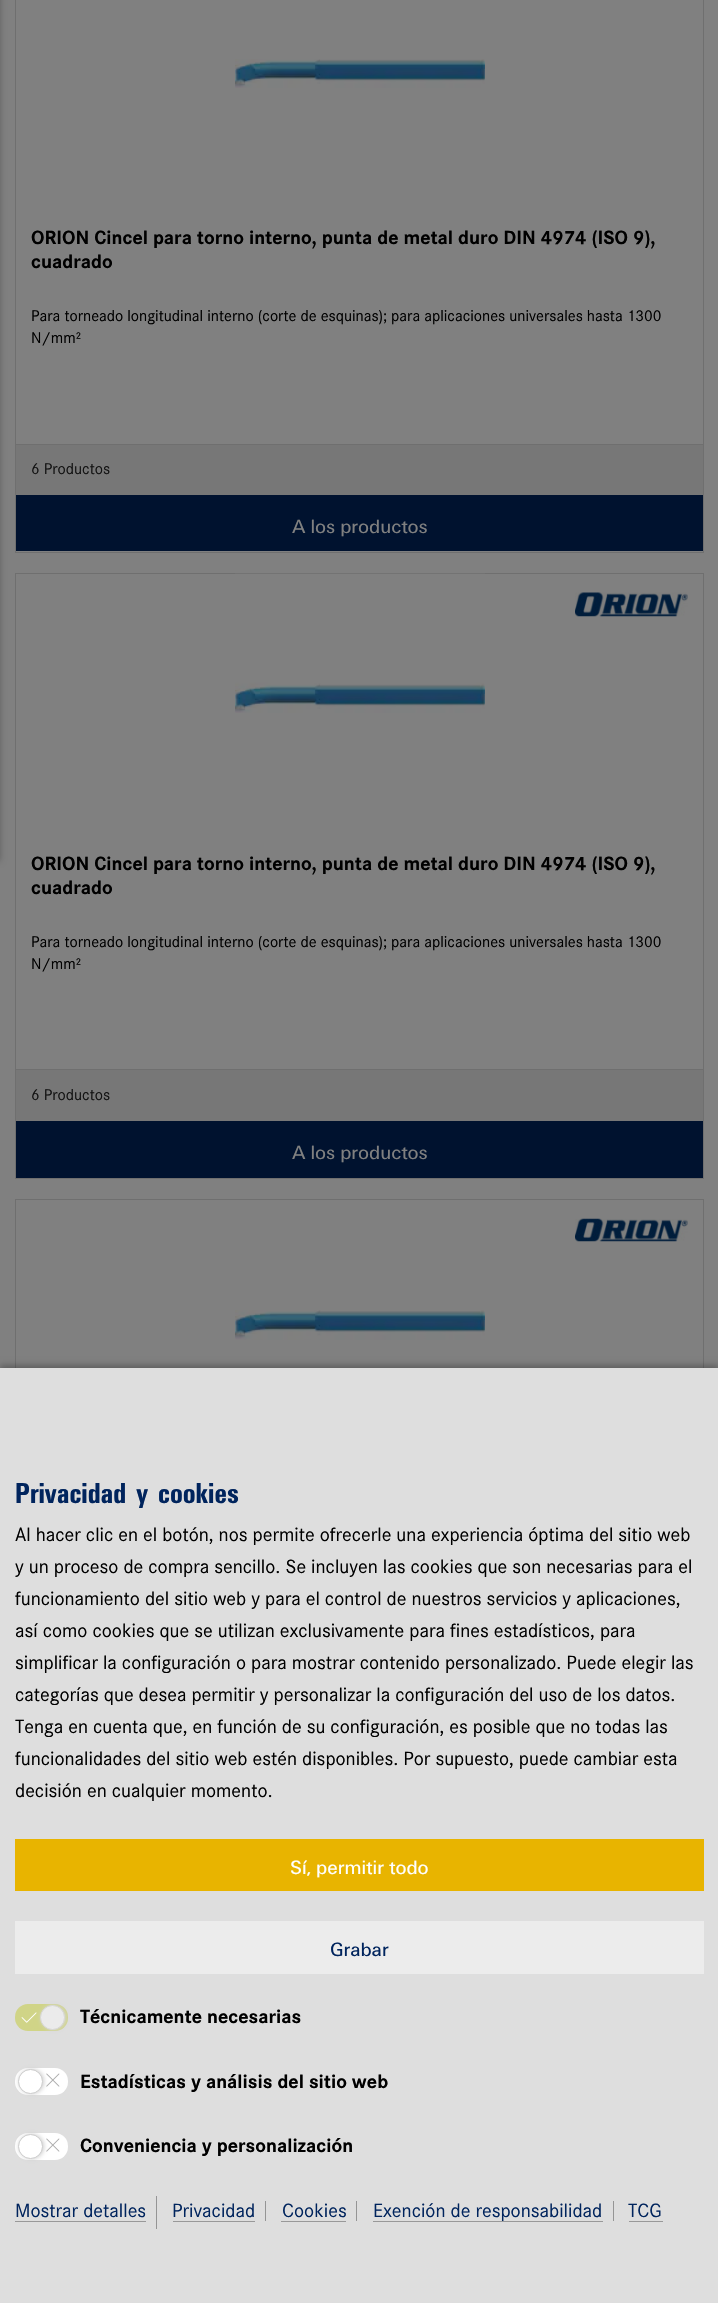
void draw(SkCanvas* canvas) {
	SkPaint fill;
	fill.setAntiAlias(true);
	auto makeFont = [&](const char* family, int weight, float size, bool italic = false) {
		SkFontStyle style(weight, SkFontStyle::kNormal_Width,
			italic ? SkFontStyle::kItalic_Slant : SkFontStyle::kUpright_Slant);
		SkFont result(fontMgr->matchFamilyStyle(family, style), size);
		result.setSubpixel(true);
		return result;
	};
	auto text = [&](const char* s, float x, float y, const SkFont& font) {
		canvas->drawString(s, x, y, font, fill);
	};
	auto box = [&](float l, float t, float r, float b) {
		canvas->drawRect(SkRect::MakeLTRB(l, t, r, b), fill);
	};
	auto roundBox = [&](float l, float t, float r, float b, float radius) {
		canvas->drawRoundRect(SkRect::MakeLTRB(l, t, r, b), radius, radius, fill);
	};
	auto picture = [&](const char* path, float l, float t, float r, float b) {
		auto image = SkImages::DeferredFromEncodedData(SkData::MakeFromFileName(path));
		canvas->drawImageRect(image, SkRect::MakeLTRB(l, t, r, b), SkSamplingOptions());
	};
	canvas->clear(0xFF808080);
	fill.setColor(0x42000000);
	fill.setMaskFilter(SkMaskFilter::MakeBlur(kNormal_SkBlurStyle, 3));
	canvas->drawRect(SkRect::MakeLTRB(-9, -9, 0, 861), fill);
	fill.setMaskFilter(nullptr);
	fill.setStyle(SkPaint::kStroke_Style);
	fill.setStrokeWidth(1);
	fill.setColor(0xFF6F6F6F);
	canvas->drawRect(SkRect::MakeLTRB(15.5f, -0.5f, 703.5f, 552.5f), fill);
	picture("image0.png", 235, 59, 485, 88);
	fill.setStyle(SkPaint::kFill_Style);
	fill.setColor(0xFF777777);
	box(16, 445, 703, 495);
	fill.setColor(0xFF6F6F6F);
	box(16, 444, 703, 445);
	fill.setColor(0xFF00122F);
	box(16, 495, 703, 551);
	fill.setStyle(SkPaint::kStroke_Style);
	fill.setColor(0xFF6F6F6F);
	canvas->drawRect(SkRect::MakeLTRB(15.5f, 573.5f, 703.5f, 1178.5f), fill);
	picture("image1.png", 235, 573, 485, 713);
	picture("image2.png", 575, 592, 688, 617);
	fill.setStyle(SkPaint::kFill_Style);
	fill.setColor(0xFF777777);
	box(16, 1070, 703, 1121);
	fill.setColor(0xFF6F6F6F);
	box(16, 1069, 703, 1070);
	fill.setColor(0xFF00122F);
	box(16, 1121, 703, 1178);
	fill.setStyle(SkPaint::kStroke_Style);
	fill.setColor(0xFF6F6F6F);
	canvas->drawRect(SkRect::MakeLTRB(15.5f, 1199.5f, 703.5f, 1804.5f), fill);
	picture("image3.png", 575, 1218, 688, 1242);
	picture("image4.png", 235, 1310, 485, 1340);
	fill.setStyle(SkPaint::kFill_Style);
	fill.setColor(0x42000000);
	fill.setMaskFilter(SkMaskFilter::MakeBlur(kNormal_SkBlurStyle, 3));
	canvas->drawRect(SkRect::MakeLTRB(0, 1365, 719, 2301), fill);
	fill.setMaskFilter(nullptr);
	fill.setColor(0xFFDEDEDE);
	box(0, 1368, 718, 2303);
	fill.setColor(0xFFE8B400);
	box(15, 1839, 704, 1891);
	fill.setColor(0xFFECECEC);
	box(15, 1921, 704, 1974);
	fill.setColor(0xFFD0D487);
	roundBox(15, 2004, 68, 2031, 13);
	fill.setColor(0xFFD7D7D7);
	fill.setMaskFilter(SkMaskFilter::MakeBlur(kNormal_SkBlurStyle, 2));
	canvas->drawRoundRect(SkRect::MakeLTRB(41, 2005, 66, 2030), 12.5f, 12.5f, fill);
	fill.setMaskFilter(nullptr);
	fill.setColor(0xFFEBEBEB);
	canvas->drawCircle(52.5f, 2017.5f, 12, fill);
	fill.setStyle(SkPaint::kStroke_Style);
	fill.setColor(0xFFD7D7D7);
	canvas->drawCircle(52.5f, 2017.5f, 12, fill);
	picture("image5.png", 21, 2012, 37, 2023);
	fill.setStyle(SkPaint::kFill_Style);
	fill.setColor(0xFFFFFFFF);
	roundBox(15, 2068, 68, 2095, 13);
	fill.setColor(0xFFCCCCCC);
	fill.setMaskFilter(SkMaskFilter::MakeBlur(kNormal_SkBlurStyle, 2));
	canvas->drawRoundRect(SkRect::MakeLTRB(19, 2069, 44, 2094), 12.5f, 12.5f, fill);
	fill.setMaskFilter(nullptr);
	fill.setColor(0xFFFFFFFF);
	canvas->drawCircle(30.5f, 2081.5f, 12, fill);
	fill.setStyle(SkPaint::kStroke_Style);
	fill.setColor(0xFFCCCCCC);
	canvas->drawCircle(30.5f, 2081.5f, 12, fill);
	picture("image6.png", 46, 2073, 60, 2087);
	fill.setStyle(SkPaint::kFill_Style);
	fill.setColor(0xFFFFFFFF);
	roundBox(15, 2133, 68, 2160, 13);
	fill.setColor(0xFFCCCCCC);
	fill.setMaskFilter(SkMaskFilter::MakeBlur(kNormal_SkBlurStyle, 2));
	canvas->drawRoundRect(SkRect::MakeLTRB(19, 2134, 44, 2159), 12.5f, 12.5f, fill);
	fill.setMaskFilter(nullptr);
	fill.setColor(0xFFFFFFFF);
	canvas->drawCircle(30.5f, 2146.5f, 12, fill);
	fill.setStyle(SkPaint::kStroke_Style);
	fill.setColor(0xFFCCCCCC);
	canvas->drawCircle(30.5f, 2146.5f, 12, fill);
	picture("image6.png", 46, 2138, 60, 2152);
	fill.setStyle(SkPaint::kFill_Style);
	fill.setColor(0xFF959595);
	box(156, 2196, 157, 2229);
	fill.setColor(0xFF999999);
	box(15, 2221, 146, 2222);
	fill.setColor(0xFF959595);
	box(265, 2201, 266, 2221);
	fill.setColor(0xFF999999);
	box(173, 2221, 255, 2222);
	fill.setColor(0xFF959595);
	box(356, 2201, 357, 2221);
	fill.setColor(0xFF999999);
	box(281, 2221, 346, 2222);
	fill.setColor(0xFF959595);
	box(613, 2201, 614, 2221);
	fill.setColor(0xFF999999);
	box(373, 2221, 603, 2222);
	box(629, 2221, 663, 2222);
	auto font1 = makeFont("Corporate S", 700, 20);
	fill.setColor(0xFF000000);
	text("ORION Cincel para torno interno, punta de metal duro DIN 4974 (ISO 9),", 31, 244, font1);
	text("cuadrado", 31, 268, font1);
	auto font2 = makeFont("Corporate S", 400, 16.25f);
	text("Para torneado longitudinal interno (corte de esquinas); para aplicaciones universales hasta 1300", 31, 321, font2);
	text("N/mm²", 31, 343, font2);
	fill.setColor(0xFF131313);
	text("6 Productos", 31, 474, font2);
	auto font3 = makeFont("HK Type", 400, 20);
	fill.setColor(0xFF808080);
	text("A los productos", 292, 533, font3);
	fill.setColor(0xFF000000);
	text("ORION Cincel para torno interno, punta de metal duro DIN 4974 (ISO 9),", 31, 870, font1);
	text("cuadrado", 31, 894, font1);
	text("Para torneado longitudinal interno (corte de esquinas); para aplicaciones universales hasta 1300", 31, 947, font2);
	text("N/mm²", 31, 969, font2);
	fill.setColor(0xFF131313);
	text("6 Productos", 31, 1100, font2);
	fill.setColor(0xFF808080);
	text("A los productos", 292, 1159, font3);
	auto font4 = makeFont("HK Type", 700, 30);
	fill.setColor(0xFF00245D);
	text("Privacidad y cookies", 15, 1503, font4);
	auto font5 = makeFont("Corporate S", 400, 20);
	fill.setColor(0xFF000000);
	text("Al hacer clic en el botón, nos permite ofrecerle una experiencia óptima del sitio web", 15, 1541, font5);
	text("y un proceso de compra sencillo. Se incluyen las cookies que son necesarias para el", 15, 1573, font5);
	text("funcionamiento del sitio web y para el control de nuestros servicios y aplicaciones,", 15, 1605, font5);
	text("así como cookies que se utilizan exclusivamente para fines estadísticos, para", 15, 1637, font5);
	text("simplificar la configuración o para mostrar contenido personalizado. Puede elegir las", 15, 1669, font5);
	text("categorías que desea permitir y personalizar la configuración del uso de los datos.", 15, 1701, font5);
	text("Tenga en cuenta que, en función de su configuración, es posible que no todas las", 15, 1733, font5);
	text("funcionalidades del sitio web estén disponibles. Por supuesto, puede cambiar esta", 15, 1765, font5);
	text("decisión en cualquier momento.", 15, 1797, font5);
	fill.setColor(0xFFFFFFFF);
	text("Sí, permitir todo", 290, 1874, font3);
	fill.setColor(0xFF00245D);
	text("Grabar", 330, 1956, font3);
	fill.setColor(0xFF000000);
	text("Técnicamente necesarias", 80, 2023, font1);
	text("Estadísticas y análisis del sitio web", 80, 2088, font1);
	text("Conveniencia y personalización", 80, 2152, font1);
	fill.setColor(0xFF00245D);
	text("Mostrar detalles", 15, 2217, font5);
	text("Privacidad", 172, 2217, font5);
	text("Cookies", 282, 2217, font5);
	text("Exención de responsabilidad", 373, 2217, font5);
	text("TCG", 628, 2217, font5);
}
